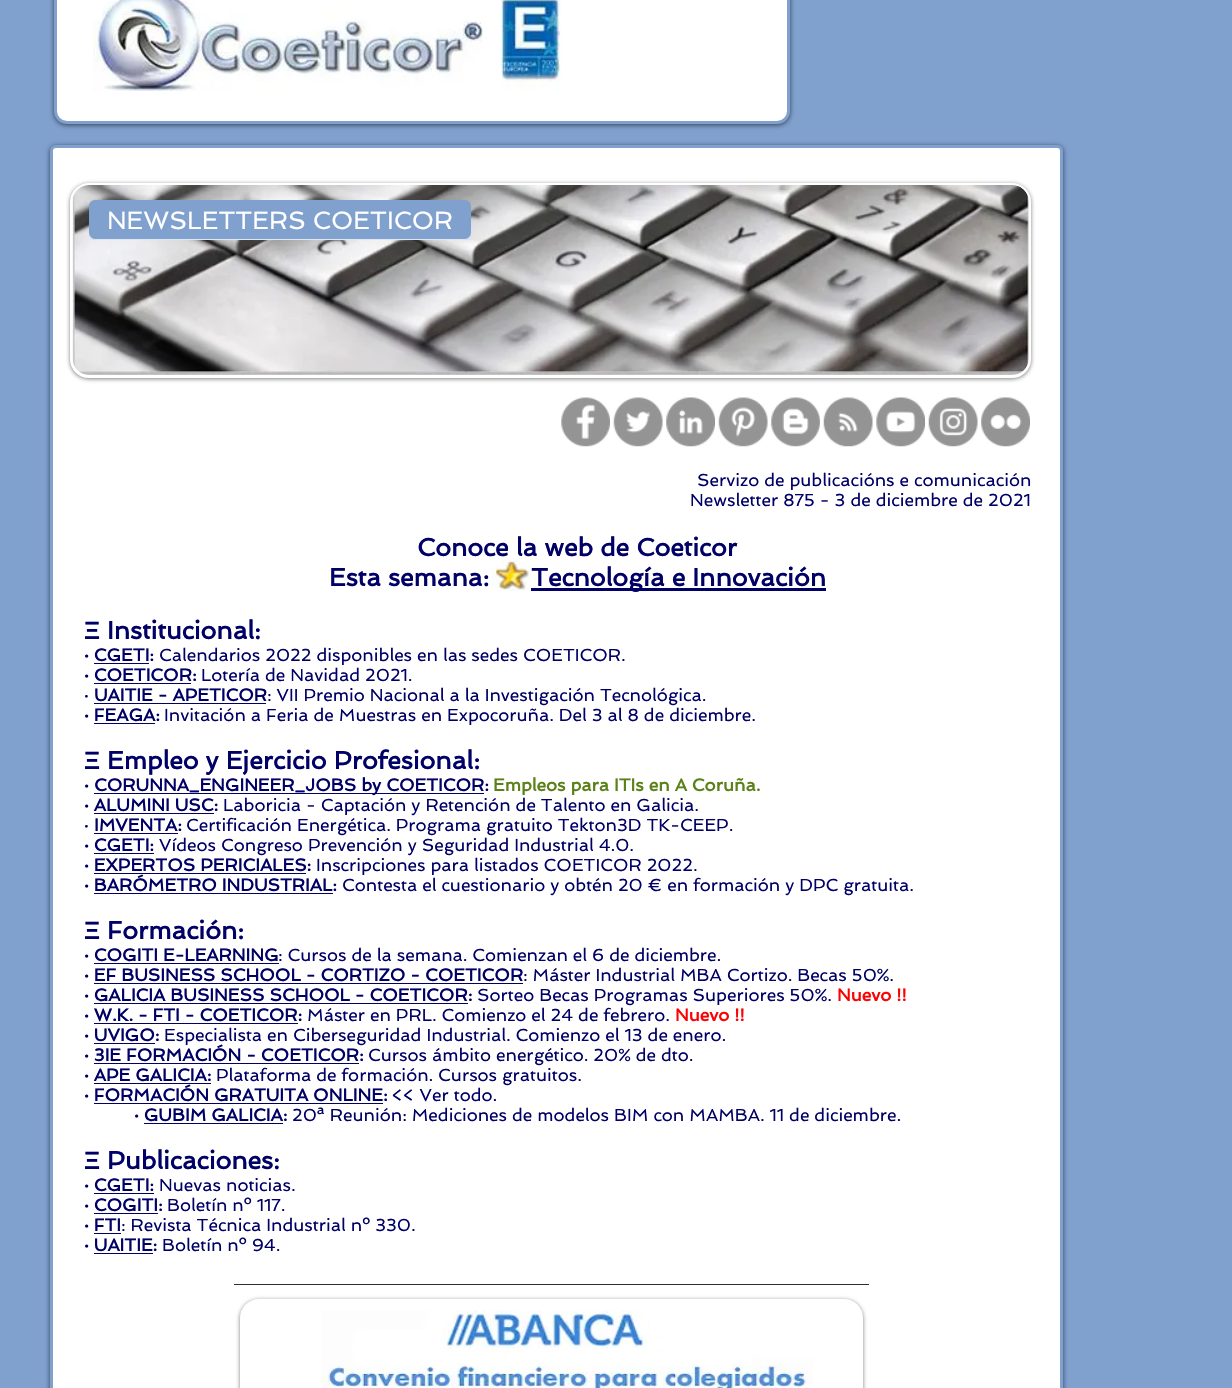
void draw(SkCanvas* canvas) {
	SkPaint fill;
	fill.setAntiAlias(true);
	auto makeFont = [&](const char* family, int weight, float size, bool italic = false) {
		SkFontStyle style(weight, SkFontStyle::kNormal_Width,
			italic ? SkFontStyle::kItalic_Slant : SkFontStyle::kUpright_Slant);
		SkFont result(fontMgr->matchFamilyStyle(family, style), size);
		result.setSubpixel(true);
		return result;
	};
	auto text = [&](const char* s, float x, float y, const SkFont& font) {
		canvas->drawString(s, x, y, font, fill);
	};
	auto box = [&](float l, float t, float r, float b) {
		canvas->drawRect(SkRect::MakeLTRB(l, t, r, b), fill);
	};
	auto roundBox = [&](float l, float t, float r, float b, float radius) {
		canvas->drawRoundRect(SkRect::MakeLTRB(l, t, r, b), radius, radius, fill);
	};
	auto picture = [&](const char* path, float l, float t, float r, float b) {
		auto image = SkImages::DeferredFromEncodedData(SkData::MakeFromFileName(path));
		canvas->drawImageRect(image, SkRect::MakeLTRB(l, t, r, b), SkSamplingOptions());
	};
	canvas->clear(0xFF80A0CE);
	fill.setColor(0x99000000);
	fill.setMaskFilter(SkMaskFilter::MakeBlur(kNormal_SkBlurStyle, 2.5f));
	canvas->drawRoundRect(SkRect::MakeLTRB(54, -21, 790, 125), 13, 13, fill);
	fill.setMaskFilter(nullptr);
	fill.setColor(0xFFFFFFFF);
	canvas->drawRoundRect(SkRect::MakeLTRB(55.5f, -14.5f, 788.5f, 122.5f), 11.5f, 11.5f, fill);
	fill.setStyle(SkPaint::kStroke_Style);
	fill.setStrokeWidth(3);
	fill.setColor(0xFF80A0CE);
	canvas->drawRoundRect(SkRect::MakeLTRB(55.5f, -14.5f, 788.5f, 122.5f), 11.5f, 11.5f, fill);
	picture("image0.png", 93, 0, 561, 91);
	fill.setStyle(SkPaint::kFill_Style);
	fill.setColor(0x99000000);
	fill.setMaskFilter(SkMaskFilter::MakeBlur(kNormal_SkBlurStyle, 2.5f));
	canvas->drawRoundRect(SkRect::MakeLTRB(50, 146, 1063, 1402), 6, 6, fill);
	fill.setMaskFilter(nullptr);
	fill.setColor(0xFFFFFFFF);
	canvas->drawRoundRect(SkRect::MakeLTRB(51.5f, 146.5f, 1061.5f, 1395.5f), 4.5f, 4.5f, fill);
	fill.setStyle(SkPaint::kStroke_Style);
	fill.setColor(0xFF80A0CE);
	canvas->drawRoundRect(SkRect::MakeLTRB(51.5f, 146.5f, 1061.5f, 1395.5f), 4.5f, 4.5f, fill);
	fill.setStyle(SkPaint::kFill_Style);
	fill.setColor(0x80000000);
	fill.setMaskFilter(SkMaskFilter::MakeBlur(kNormal_SkBlurStyle, 2));
	canvas->drawRoundRect(SkRect::MakeLTRB(70, 184, 1031, 379), 19, 19, fill);
	fill.setMaskFilter(nullptr);
	fill.setColor(0xFFFFFFFF);
	canvas->drawRoundRect(SkRect::MakeLTRB(71.5f, 184.5f, 1029.5f, 376.5f), 17.5f, 17.5f, fill);
	fill.setStyle(SkPaint::kStroke_Style);
	canvas->drawRoundRect(SkRect::MakeLTRB(71.5f, 184.5f, 1029.5f, 376.5f), 17.5f, 17.5f, fill);
	picture("image1.png", 72, 185, 1029, 375);
	fill.setStyle(SkPaint::kFill_Style);
	fill.setColor(0xFF80A0CE);
	roundBox(89, 200, 471, 240, 6);
	fill.setColor(0xBFFFFFFF);
	canvas->drawPath(SkPathBuilder().moveTo(89, 232).cubicTo(89, 236, 90, 240, 95, 240).lineTo(465, 240).cubicTo(470, 240, 471, 236, 471, 232).cubicTo(471, 236, 468, 239, 465, 239).lineTo(95, 239).cubicTo(92, 239, 89, 236, 89, 232).close().detach(), fill);
	picture("image2.png", 561, 397, 610, 447);
	picture("image3.png", 613, 397, 663, 447);
	picture("image4.png", 666, 397, 715, 447);
	picture("image5.png", 718, 397, 768, 447);
	picture("image6.png", 771, 397, 820, 447);
	picture("image7.png", 823, 397, 873, 447);
	picture("image8.png", 876, 397, 925, 447);
	picture("image9.png", 928, 397, 978, 447);
	picture("image10.png", 981, 397, 1030, 447);
	fill.setColor(0xFF000066);
	box(531, 588, 826, 591);
	picture("image11.png", 491, 559, 530, 591);
	box(94, 663, 149, 664);
	box(94, 683, 191, 684);
	box(94, 703, 266, 704);
	box(94, 723, 155, 724);
	box(94, 793, 484, 794);
	box(94, 813, 214, 814);
	box(94, 833, 178, 834);
	box(94, 853, 154, 854);
	box(94, 873, 306, 874);
	box(94, 893, 333, 894);
	box(94, 963, 279, 964);
	box(94, 983, 523, 984);
	box(94, 1003, 468, 1004);
	box(94, 1023, 298, 1024);
	box(94, 1043, 155, 1044);
	box(94, 1063, 359, 1064);
	box(94, 1083, 211, 1084);
	box(94, 1103, 383, 1104);
	box(144, 1123, 283, 1124);
	box(94, 1193, 154, 1194);
	box(94, 1213, 158, 1214);
	box(94, 1233, 121, 1234);
	box(94, 1253, 153, 1254);
	fill.setColor(0xFF2F2E2E);
	box(234, 1284, 869, 1285);
	fill.setColor(0x80000000);
	fill.setMaskFilter(SkMaskFilter::MakeBlur(kNormal_SkBlurStyle, 2));
	canvas->drawRoundRect(SkRect::MakeLTRB(240, 1300, 863, 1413), 19, 19, fill);
	fill.setMaskFilter(nullptr);
	fill.setColor(0xFFFFFFFF);
	canvas->drawRoundRect(SkRect::MakeLTRB(241.5f, 1300.5f, 861.5f, 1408.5f), 17.5f, 17.5f, fill);
	fill.setStyle(SkPaint::kStroke_Style);
	canvas->drawRoundRect(SkRect::MakeLTRB(241.5f, 1300.5f, 861.5f, 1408.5f), 17.5f, 17.5f, fill);
	picture("image12.png", 322, 1310, 813, 1388);
	auto font1 = makeFont("Spinnaker", 400, 25);
	fill.setStyle(SkPaint::kFill_Style);
	text("NEWSLETTERS COETICOR", 107, 229, font1);
	auto font2 = makeFont("Spinnaker", 400, 17.5f);
	fill.setColor(0xFF000066);
	text("Servizo de publicacións e comunicación", 697, 486, font2);
	text("Newsletter 875 - 3 de diciembre de 2021", 690, 506, font2);
	auto font3 = makeFont("Spinnaker", 700, 25);
	text("Conoce la web de Coeticor", 417, 556, font3);
	text("Esta semana:", 329, 586, font3);
	text("Tecnología e Innovación", 531, 586, font3);
	auto font4 = makeFont("Liberation Sans", 700, 25);
	text("Ξ", 84, 639, font4);
	text("Institucional:", 107, 639, font3);
	auto font5 = makeFont("Spinnaker", 700, 17.5f);
	text("· CGETI:", 84, 661, font5);
	text("Calendarios 2022 disponibles en las sedes COETICOR.", 159, 661, font2);
	text("· COETICOR:", 84, 681, font5);
	text("Lotería de Navidad 2021.", 201, 681, font2);
	text("·", 84, 701, font2);
	text("UAITIE - APETICOR", 94, 701, font5);
	text(": VII Premio Nacional a la Investigación Tecnológica.", 267, 701, font2);
	text("· FEAGA:", 84, 721, font5);
	text("Invitación a Feria de Muestras en Expocoruña. Del 3 al 8 de diciembre.", 164, 721, font2);
	text("Ξ", 84, 769, font4);
	text("Empleo y Ejercicio Profesional:", 107, 769, font3);
	text("·", 84, 791, font5);
	text("CORUNNA_ENGINEER_JOBS by COETICOR:", 94, 791, font5);
	fill.setColor(0xFF5B8119);
	text("Empleos para ITIs en A Coruña.", 493, 791, font5);
	fill.setColor(0xFF000066);
	text("· ALUMINI USC:", 84, 811, font5);
	text("Laboricia - Captación y Retención de Talento en Galicia.", 223, 811, font2);
	text("·", 84, 831, font2);
	text("IMVENTA:", 94, 831, font5);
	text("Certificación Energética. Programa gratuito Tekton3D TK-CEEP.", 186, 831, font2);
	text("· CGETI:", 84, 851, font5);
	text("Vídeos Congreso Prevención y Seguridad Industrial 4.0.", 159, 851, font2);
	text("· EXPERTOS PERICIALES:", 84, 871, font5);
	text("Inscripciones para listados COETICOR 2022.", 316, 871, font2);
	text("· BARÓMETRO INDUSTRIAL:", 84, 891, font5);
	text("Contesta el cuestionario y obtén 20 € en formación y DPC gratuita.", 342, 891, font2);
	text("Ξ", 84, 939, font4);
	text("Formación:", 107, 939, font3);
	text("· COGITI E-LEARNING", 84, 961, font5);
	text(": Cursos de la semana. Comienzan el 6 de diciembre.", 278, 961, font2);
	text("· EF BUSINESS SCHOOL - CORTIZO - COETICOR", 84, 981, font5);
	text(": Máster Industrial MBA Cortizo. Becas 50%.", 523, 981, font2);
	text("· GALICIA BUSINESS SCHOOL - COETICOR:", 84, 1001, font5);
	text("Sorteo Becas Programas Superiores 50%.", 477, 1001, font2);
	fill.setColor(0xFFFB0303);
	text("Nuevo !!", 837, 1001, font5);
	fill.setColor(0xFF000066);
	text("· W.K. - FTI - COETICOR:", 84, 1021, font5);
	text("Máster en PRL. Comienzo el 24 de febrero.", 307, 1021, font2);
	fill.setColor(0xFFFB0303);
	text("Nuevo !!", 675, 1021, font5);
	fill.setColor(0xFF000066);
	text("· UVIGO:", 84, 1041, font5);
	text("Especialista en Ciberseguridad Industrial. Comienzo el 13 de enero.", 164, 1041, font2);
	text("· 3IE FORMACIÓN - COETICOR:", 84, 1061, font5);
	text("Cursos ámbito energético. 20% de dto.", 368, 1061, font2);
	text("· APE GALICIA:", 84, 1081, font5);
	text("Plataforma de formación. Cursos gratuitos.", 216, 1081, font2);
	text("· FORMACIÓN GRATUITA ONLINE:", 84, 1101, font5);
	text("<< Ver todo.", 392, 1101, font2);
	text("· GUBIM GALICIA:", 134, 1121, font5);
	text("20ª Reunión: Mediciones de modelos BIM con MAMBA. 11 de diciembre.", 292, 1121, font2);
	text("Ξ", 84, 1169, font4);
	text("Publicaciones:", 107, 1169, font3);
	text("· CGETI:", 84, 1191, font5);
	text("Nuevas noticias.", 159, 1191, font2);
	text("· COGITI:", 84, 1211, font5);
	text("Boletín nº 117.", 167, 1211, font2);
	text("· FTI", 84, 1231, font5);
	text(": Revista Técnica Industrial nº 330.", 121, 1231, font2);
	text("· UAITIE:", 84, 1251, font5);
	text("Boletín nº 94.", 162, 1251, font2);
}
